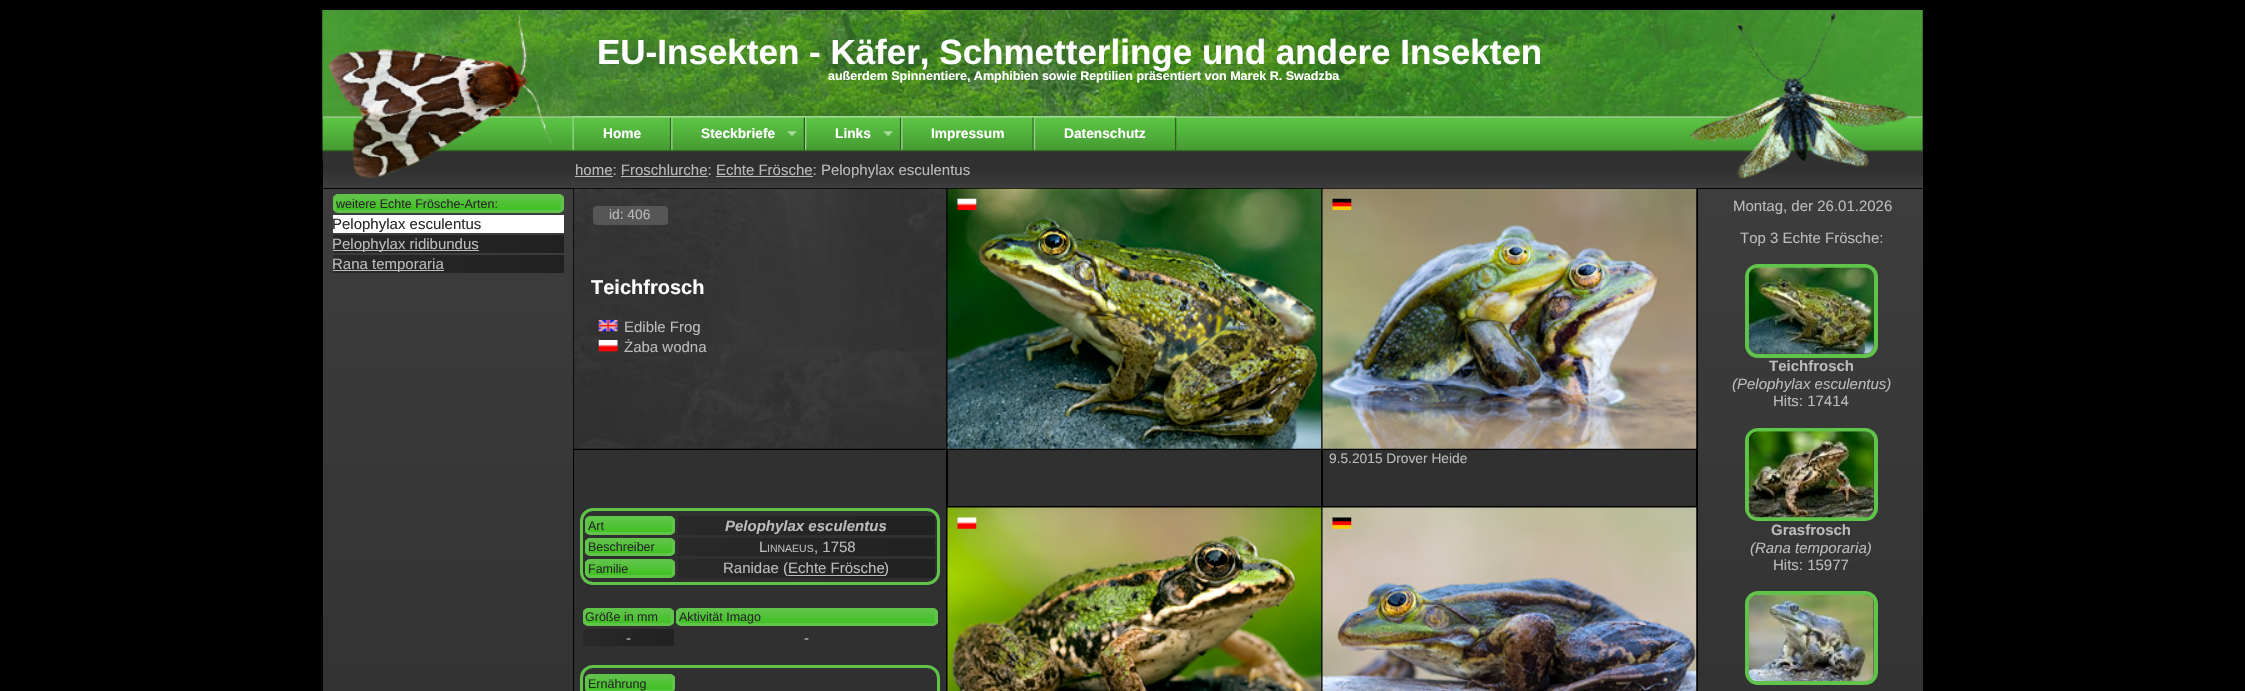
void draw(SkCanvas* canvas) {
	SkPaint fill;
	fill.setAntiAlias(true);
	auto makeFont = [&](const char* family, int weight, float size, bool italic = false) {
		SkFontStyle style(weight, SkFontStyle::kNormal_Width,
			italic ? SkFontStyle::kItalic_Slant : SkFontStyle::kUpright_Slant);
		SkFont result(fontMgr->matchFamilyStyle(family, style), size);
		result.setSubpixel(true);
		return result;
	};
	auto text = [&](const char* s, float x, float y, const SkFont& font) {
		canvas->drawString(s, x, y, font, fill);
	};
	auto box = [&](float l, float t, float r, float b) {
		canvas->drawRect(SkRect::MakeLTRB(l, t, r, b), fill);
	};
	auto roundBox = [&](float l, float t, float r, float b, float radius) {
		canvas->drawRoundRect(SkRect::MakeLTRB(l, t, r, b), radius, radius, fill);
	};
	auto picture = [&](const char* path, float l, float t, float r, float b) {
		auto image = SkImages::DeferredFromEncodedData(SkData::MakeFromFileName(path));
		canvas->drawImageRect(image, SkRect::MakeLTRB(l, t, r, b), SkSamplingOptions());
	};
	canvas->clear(0xFF000000);
	picture("image0.png", 322, 10, 1923, 117);
	picture("image1.png", 322, 10, 1923, 117);
	fill.setColor(0xFF303030);
	box(323, 116, 1923, 161);
	picture("image4.png", 322, 116, 1923, 162);
	{
		const SkColor colors[] = {0xFF303030, 0xFF3D3D3D};
		const float stops[] = {0.32f, 1};
		const SkPoint ends[] = {{1123, 161}, {1123, 188}};
		fill.setShader(SkGradientShader::MakeLinear(ends, colors, stops, 2, SkTileMode::kClamp));
		fill.setAlpha(255);
	}
	box(323, 161, 1923, 188);
	picture("image2.png", 328, 14, 552, 178);
	picture("image3.png", 1689, 13, 1908, 179);
	fill.setShader(nullptr);
	fill.setColor(0xFF303030);
	box(573, 116, 1671, 152);
	picture("image5.png", 572, 116, 1672, 152);
	picture("image6.png", 572, 116, 672, 151);
	picture("image7.png", 588, 116, 672, 151);
	picture("image8.png", 671, 116, 805, 151);
	picture("image9.png", 686, 116, 805, 151);
	picture("image10.png", 805, 116, 902, 151);
	picture("image11.png", 820, 116, 902, 151);
	picture("image12.png", 901, 116, 1034, 151);
	picture("image13.png", 916, 116, 1034, 151);
	picture("image14.png", 1033, 116, 1177, 151);
	picture("image15.png", 1049, 116, 1177, 151);
	fill.setColor(0xFFBBBBBB);
	box(575, 176, 613, 177);
	box(621, 176, 708, 177);
	box(716, 176, 813, 177);
	{
		const SkColor colors[] = {0xFF3D3D3D, 0xFF303030};
		const float stops[] = {0, 0.68f};
		const SkPoint ends[] = {{447, 189}, {448, 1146}};
		fill.setShader(SkGradientShader::MakeLinear(ends, colors, stops, 2, SkTileMode::kClamp));
		fill.setAlpha(255);
	}
	box(323, 189, 573, 691);
	canvas->save();
	canvas->clipPath(SkPathBuilder().moveTo(338, 194).lineTo(559, 194).cubicTo(562, 194, 564, 196, 564, 199).lineTo(564, 208).cubicTo(564, 211, 562, 213, 559, 213).lineTo(338, 213).cubicTo(335, 213, 333, 211, 333, 208).lineTo(333, 199).cubicTo(333, 196, 335, 194, 338, 194).close().detach(), true);
	{
		const SkColor colors[] = {0xFF60C34A, 0xFF3EC120};
		const float stops[] = {0, 1};
		const SkPoint ends[] = {{448, 196}, {448, 210}};
		fill.setShader(SkGradientShader::MakeLinear(ends, colors, stops, 2, SkTileMode::kClamp));
		fill.setAlpha(255);
	}
	box(333, 196, 564, 210);
	canvas->restore();
	fill.setStyle(SkPaint::kStroke_Style);
	fill.setStrokeWidth(3);
	fill.setShader(nullptr);
	fill.setColor(0xFF60C34A);
	canvas->drawRoundRect(SkRect::MakeLTRB(334.5f, 195.5f, 562.5f, 211.5f), 3.5f, 3.5f, fill);
	fill.setStyle(SkPaint::kFill_Style);
	fill.setColor(0xFFFFFFFF);
	box(333, 215, 564, 233);
	{
		const SkColor colors[] = {0xFF292929, 0xFF212121};
		const float stops[] = {0, 1};
		const SkPoint ends[] = {{333, 244}, {564, 244}};
		fill.setShader(SkGradientShader::MakeLinear(ends, colors, stops, 2, SkTileMode::kClamp));
		fill.setAlpha(255);
	}
	box(333, 235, 564, 253);
	fill.setShader(nullptr);
	fill.setColor(0xFFBBBBBB);
	box(333, 250, 479, 251);
	{
		const SkColor colors[] = {0xFF292929, 0xFF212121};
		const float stops[] = {0, 1};
		const SkPoint ends[] = {{333, 264}, {564, 264}};
		fill.setShader(SkGradientShader::MakeLinear(ends, colors, stops, 2, SkTileMode::kClamp));
		fill.setAlpha(255);
	}
	box(333, 255, 564, 273);
	fill.setShader(nullptr);
	fill.setColor(0xFFBBBBBB);
	box(333, 270, 444, 271);
	picture("image16.png", 573, 188, 947, 449);
	fill.setColor(0xFF565656);
	roundBox(593, 206, 668, 225, 4);
	picture("image17.png", 598, 320, 618, 332);
	picture("image18.png", 598, 340, 618, 352);
	picture("image19.png", 947, 188, 1322, 449);
	picture("image20.png", 957, 198, 977, 210);
	picture("image21.png", 1322, 188, 1697, 449);
	picture("image22.png", 1332, 198, 1352, 210);
	fill.setColor(0xFF303030);
	box(948, 450, 1321, 506);
	picture("image23.png", 947, 507, 1322, 691);
	picture("image24.png", 957, 517, 977, 529);
	box(1323, 450, 1696, 506);
	picture("image25.png", 1322, 507, 1697, 691);
	picture("image26.png", 1332, 517, 1352, 529);
	box(574, 450, 946, 691);
	fill.setStyle(SkPaint::kStroke_Style);
	fill.setColor(0xFF60C34A);
	canvas->drawRoundRect(SkRect::MakeLTRB(581.5f, 509.5f, 938.5f, 583.5f), 11.5f, 11.5f, fill);
	canvas->save();
	canvas->clipPath(SkPathBuilder().moveTo(590, 516).lineTo(670, 516).cubicTo(673, 516, 675, 518, 675, 521).lineTo(675, 530).cubicTo(675, 533, 673, 535, 670, 535).lineTo(590, 535).cubicTo(587, 535, 585, 533, 585, 530).lineTo(585, 521).cubicTo(585, 518, 587, 516, 590, 516).close().detach(), true);
	fill.setStyle(SkPaint::kFill_Style);
	{
		const SkColor colors[] = {0xFF60C34A, 0xFF3EC120};
		const float stops[] = {0, 1};
		const SkPoint ends[] = {{630, 519}, {630, 533}};
		fill.setShader(SkGradientShader::MakeLinear(ends, colors, stops, 2, SkTileMode::kClamp));
		fill.setAlpha(255);
	}
	box(585, 519, 675, 533);
	canvas->restore();
	fill.setStyle(SkPaint::kStroke_Style);
	fill.setShader(nullptr);
	fill.setColor(0xFF60C34A);
	canvas->drawRoundRect(SkRect::MakeLTRB(586.5f, 517.5f, 673.5f, 533.5f), 3.5f, 3.5f, fill);
	fill.setStyle(SkPaint::kFill_Style);
	{
		const SkColor colors[] = {0xFF292929, 0xFF212121};
		const float stops[] = {0, 1};
		const SkPoint ends[] = {{678, 526}, {935, 526}};
		fill.setShader(SkGradientShader::MakeLinear(ends, colors, stops, 2, SkTileMode::kClamp));
		fill.setAlpha(255);
	}
	box(678, 516, 935, 535);
	canvas->save();
	canvas->clipPath(SkPathBuilder().moveTo(590, 538).lineTo(670, 538).cubicTo(673, 538, 675, 540, 675, 543).lineTo(675, 551).cubicTo(675, 554, 673, 556, 670, 556).lineTo(590, 556).cubicTo(587, 556, 585, 554, 585, 551).lineTo(585, 543).cubicTo(585, 540, 587, 538, 590, 538).close().detach(), true);
	{
		const SkColor colors[] = {0xFF60C34A, 0xFF3EC120};
		const float stops[] = {0, 1};
		const SkPoint ends[] = {{630, 540}, {630, 554}};
		fill.setShader(SkGradientShader::MakeLinear(ends, colors, stops, 2, SkTileMode::kClamp));
		fill.setAlpha(255);
	}
	box(585, 540, 675, 554);
	canvas->restore();
	fill.setStyle(SkPaint::kStroke_Style);
	fill.setShader(nullptr);
	fill.setColor(0xFF60C34A);
	canvas->drawRoundRect(SkRect::MakeLTRB(586.5f, 539.5f, 673.5f, 554.5f), 3.5f, 3.5f, fill);
	fill.setStyle(SkPaint::kFill_Style);
	{
		const SkColor colors[] = {0xFF292929, 0xFF212121};
		const float stops[] = {0, 1};
		const SkPoint ends[] = {{678, 547}, {935, 547}};
		fill.setShader(SkGradientShader::MakeLinear(ends, colors, stops, 2, SkTileMode::kClamp));
		fill.setAlpha(255);
	}
	box(678, 538, 935, 556);
	canvas->save();
	canvas->clipPath(SkPathBuilder().moveTo(590, 559).lineTo(670, 559).cubicTo(673, 559, 675, 561, 675, 564).lineTo(675, 573).cubicTo(675, 576, 673, 578, 670, 578).lineTo(590, 578).cubicTo(587, 578, 585, 576, 585, 573).lineTo(585, 564).cubicTo(585, 561, 587, 559, 590, 559).close().detach(), true);
	{
		const SkColor colors[] = {0xFF60C34A, 0xFF3EC120};
		const float stops[] = {0, 1};
		const SkPoint ends[] = {{630, 561}, {630, 575}};
		fill.setShader(SkGradientShader::MakeLinear(ends, colors, stops, 2, SkTileMode::kClamp));
		fill.setAlpha(255);
	}
	box(585, 561, 675, 575);
	canvas->restore();
	fill.setStyle(SkPaint::kStroke_Style);
	fill.setShader(nullptr);
	fill.setColor(0xFF60C34A);
	canvas->drawRoundRect(SkRect::MakeLTRB(586.5f, 560.5f, 673.5f, 576.5f), 3.5f, 3.5f, fill);
	fill.setStyle(SkPaint::kFill_Style);
	{
		const SkColor colors[] = {0xFF292929, 0xFF212121};
		const float stops[] = {0, 1};
		const SkPoint ends[] = {{678, 568}, {935, 568}};
		fill.setShader(SkGradientShader::MakeLinear(ends, colors, stops, 2, SkTileMode::kClamp));
		fill.setAlpha(255);
	}
	box(678, 559, 935, 578);
	fill.setShader(nullptr);
	fill.setColor(0xFFBBBBBB);
	box(788, 575, 885, 576);
	canvas->save();
	canvas->clipPath(SkPathBuilder().moveTo(588, 608).lineTo(669, 608).cubicTo(672, 608, 674, 610, 674, 613).lineTo(674, 621).cubicTo(674, 624, 672, 626, 669, 626).lineTo(588, 626).cubicTo(585, 626, 583, 624, 583, 621).lineTo(583, 613).cubicTo(583, 610, 585, 608, 588, 608).close().detach(), true);
	{
		const SkColor colors[] = {0xFF60C34A, 0xFF3EC120};
		const float stops[] = {0, 1};
		const SkPoint ends[] = {{628, 610}, {628, 624}};
		fill.setShader(SkGradientShader::MakeLinear(ends, colors, stops, 2, SkTileMode::kClamp));
		fill.setAlpha(255);
	}
	box(583, 610, 674, 624);
	canvas->restore();
	fill.setStyle(SkPaint::kStroke_Style);
	fill.setShader(nullptr);
	fill.setColor(0xFF60C34A);
	canvas->drawRoundRect(SkRect::MakeLTRB(584.5f, 609.5f, 672.5f, 624.5f), 3.5f, 3.5f, fill);
	canvas->save();
	canvas->clipPath(SkPathBuilder().moveTo(681, 608).lineTo(933, 608).cubicTo(936, 608, 938, 610, 938, 613).lineTo(938, 621).cubicTo(938, 624, 936, 626, 933, 626).lineTo(681, 626).cubicTo(678, 626, 676, 624, 676, 621).lineTo(676, 613).cubicTo(676, 610, 678, 608, 681, 608).close().detach(), true);
	fill.setStyle(SkPaint::kFill_Style);
	{
		const SkColor colors[] = {0xFF60C34A, 0xFF3EC120};
		const float stops[] = {0, 1};
		const SkPoint ends[] = {{807, 610}, {807, 624}};
		fill.setShader(SkGradientShader::MakeLinear(ends, colors, stops, 2, SkTileMode::kClamp));
		fill.setAlpha(255);
	}
	box(676, 610, 938, 624);
	canvas->restore();
	fill.setStyle(SkPaint::kStroke_Style);
	fill.setShader(nullptr);
	fill.setColor(0xFF60C34A);
	canvas->drawRoundRect(SkRect::MakeLTRB(677.5f, 609.5f, 936.5f, 624.5f), 3.5f, 3.5f, fill);
	fill.setStyle(SkPaint::kFill_Style);
	{
		const SkColor colors[] = {0xFF292929, 0xFF212121};
		const float stops[] = {0, 1};
		const SkPoint ends[] = {{583, 638}, {674, 638}};
		fill.setShader(SkGradientShader::MakeLinear(ends, colors, stops, 2, SkTileMode::kClamp));
		fill.setAlpha(255);
	}
	box(583, 629, 674, 646);
	fill.setStyle(SkPaint::kStroke_Style);
	fill.setShader(nullptr);
	fill.setColor(0xFF60C34A);
	canvas->drawRoundRect(SkRect::MakeLTRB(581.5f, 666.5f, 938.5f, 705.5f), 11.5f, 11.5f, fill);
	canvas->save();
	canvas->clipPath(SkPathBuilder().moveTo(590, 674).lineTo(670, 674).cubicTo(673, 674, 675, 676, 675, 679).lineTo(675, 688).cubicTo(675, 691, 673, 693, 670, 693).lineTo(590, 693).cubicTo(587, 693, 585, 691, 585, 688).lineTo(585, 679).cubicTo(585, 676, 587, 674, 590, 674).close().detach(), true);
	fill.setStyle(SkPaint::kFill_Style);
	{
		const SkColor colors[] = {0xFF60C34A, 0xFF3EC120};
		const float stops[] = {0, 1};
		const SkPoint ends[] = {{630, 676}, {630, 690}};
		fill.setShader(SkGradientShader::MakeLinear(ends, colors, stops, 2, SkTileMode::kClamp));
		fill.setAlpha(255);
	}
	box(585, 676, 675, 690);
	canvas->restore();
	fill.setStyle(SkPaint::kStroke_Style);
	fill.setShader(nullptr);
	fill.setColor(0xFF60C34A);
	canvas->drawRoundRect(SkRect::MakeLTRB(586.5f, 675.5f, 673.5f, 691.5f), 3.5f, 3.5f, fill);
	fill.setStyle(SkPaint::kFill_Style);
	{
		const SkColor colors[] = {0xFF3D3D3D, 0xFF303030};
		const float stops[] = {0, 0.68f};
		const SkPoint ends[] = {{1810, 189}, {1810, 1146}};
		fill.setShader(SkGradientShader::MakeLinear(ends, colors, stops, 2, SkTileMode::kClamp));
		fill.setAlpha(255);
	}
	box(1698, 189, 1923, 691);
	fill.setStyle(SkPaint::kStroke_Style);
	fill.setStrokeWidth(4);
	fill.setShader(nullptr);
	fill.setColor(0xFF60C34A);
	canvas->drawRoundRect(SkRect::MakeLTRB(1747, 266, 1876, 356), 11, 11, fill);
	picture("image27.png", 1748, 267, 1874, 354);
	canvas->drawRoundRect(SkRect::MakeLTRB(1747, 430, 1876, 519), 11, 11, fill);
	picture("image28.png", 1748, 431, 1874, 518);
	canvas->drawRoundRect(SkRect::MakeLTRB(1747, 593, 1876, 683), 11, 11, fill);
	picture("image29.png", 1748, 595, 1874, 682);
	auto font1 = makeFont("Liberation Sans", 700, 35);
	fill.setStyle(SkPaint::kFill_Style);
	fill.setColor(0xFFFFFFFF);
	text("EU-Insekten - Käfer, Schmetterlinge und andere Insekten", 597, 64, font1);
	auto font2 = makeFont("Liberation Sans", 700, 12.5f);
	text("außerdem Spinnentiere, Amphibien sowie Reptilien präsentiert von Marek R. Swadzba", 828, 80, font2);
	auto font3 = makeFont("Liberation Sans", 700, 13.75f);
	text("Home", 603, 138, font3);
	text("Steckbriefe", 701, 138, font3);
	text("Links", 835, 138, font3);
	text("Impressum", 931, 138, font3);
	text("Datenschutz", 1064, 138, font3);
	auto font4 = makeFont("Liberation Sans", 400, 15);
	fill.setColor(0xFFBBBBBB);
	text("home: Froschlurche: Echte Frösche: Pelophylax esculentus", 575, 175, font4);
	auto font5 = makeFont("Liberation Sans", 400, 12.5f);
	fill.setColor(0xFF292929);
	text("weitere Echte Frösche-Arten:", 336, 208, font5);
	text("Pelophylax esculentus", 332, 229, font4);
	fill.setColor(0xFFBBBBBB);
	text("Pelophylax ridibundus", 332, 249, font4);
	text("Rana temporaria", 332, 269, font4);
	auto font6 = makeFont("Liberation Sans", 400, 13.75f);
	text("id: 406", 609, 219, font6);
	auto font7 = makeFont("Liberation Sans", 700, 20);
	fill.setColor(0xFFFFFFFF);
	text("Teichfrosch", 591, 294, font7);
	fill.setColor(0xFFBBBBBB);
	text("Edible Frog", 624, 332, font4);
	text("Żaba wodna", 624, 352, font4);
	text("9.5.2015 Drover Heide", 1329, 463, font6);
	fill.setColor(0xFF292929);
	text("Art", 588, 530, font5);
	auto font8 = makeFont("Liberation Sans", 700, 15, true);
	fill.setColor(0xFFBBBBBB);
	text("Pelophylax esculentus", 725, 531, font8);
	fill.setColor(0xFF292929);
	text("Beschreiber", 588, 551, font5);
	fill.setColor(0xFFBBBBBB);
	text("L", 759, 552, font4);
	auto font9 = makeFont("Liberation Sans", 400, 10.5f);
	text("INNAEUS", 767, 552, font9);
	text(", 1758", 814, 552, font4);
	fill.setColor(0xFF292929);
	text("Familie", 588, 573, font5);
	fill.setColor(0xFFBBBBBB);
	text("Ranidae (Echte Frösche", 723, 573, font4);
	text(")", 884, 573, font4);
	fill.setColor(0xFF292929);
	text("Größe in mm", 585, 621, font5);
	text("Aktivität Imago", 679, 621, font5);
	fill.setColor(0xFFBBBBBB);
	text("-", 626, 643, font4);
	text("-", 804, 643, font4);
	fill.setColor(0xFF292929);
	text("Ernährung", 588, 688, font5);
	fill.setColor(0xFFBBBBBB);
	text("Montag, der 26.01.2026", 1733, 211, font4);
	text("Top 3 Echte Frösche:", 1740, 243, font4);
	auto font10 = makeFont("Liberation Sans", 700, 15);
	text("Teichfrosch", 1769, 371, font10);
	auto font11 = makeFont("Liberation Sans", 400, 15, true);
	text("(Pelophylax esculentus)", 1732, 389, font11);
	text("Hits: 17414", 1773, 406, font4);
	text("Grasfrosch", 1771, 535, font10);
	text("(Rana temporaria)", 1750, 553, font11);
	text("Hits: 15977", 1773, 570, font4);
}
